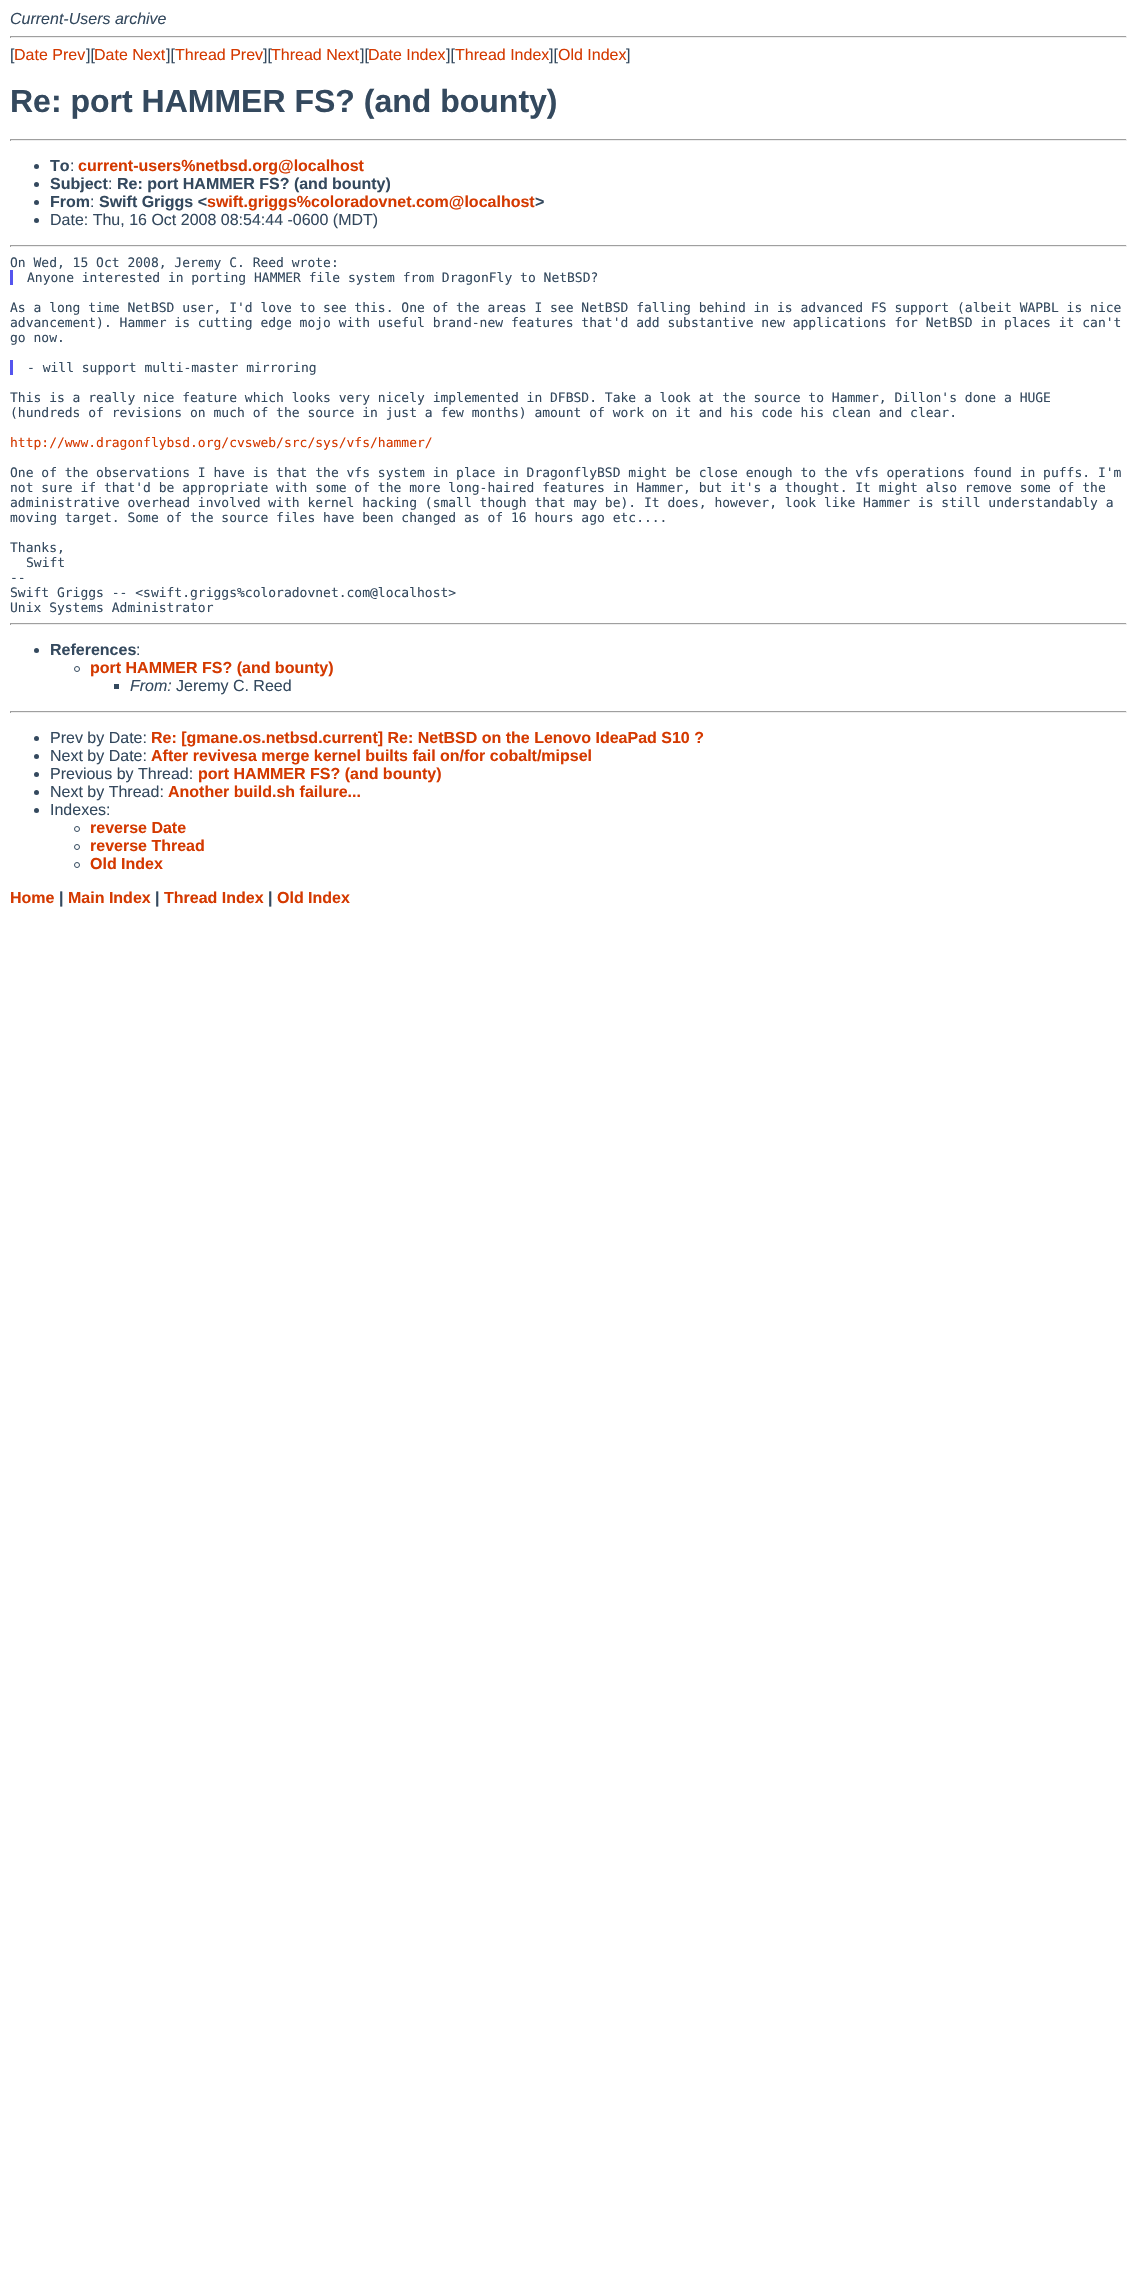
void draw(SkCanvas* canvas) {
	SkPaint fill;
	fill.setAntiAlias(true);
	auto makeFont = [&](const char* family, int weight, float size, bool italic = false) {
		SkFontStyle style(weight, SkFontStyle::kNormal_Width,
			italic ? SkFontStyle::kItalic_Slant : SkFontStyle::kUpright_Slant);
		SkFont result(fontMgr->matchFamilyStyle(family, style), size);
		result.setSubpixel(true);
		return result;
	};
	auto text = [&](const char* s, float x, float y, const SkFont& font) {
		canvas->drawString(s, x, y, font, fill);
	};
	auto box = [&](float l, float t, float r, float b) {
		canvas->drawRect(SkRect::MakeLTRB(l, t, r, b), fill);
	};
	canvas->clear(0xFFFFFFFF);
	fill.setColor(0xFF9F9F9F);
	box(10, 36, 1127, 37);
	fill.setColor(0xFFEEEEEE);
	box(1126, 36, 1127, 38);
	box(10, 37, 1127, 38);
	fill.setColor(0xFF9F9F9F);
	box(10, 36, 11, 38);
	box(10, 139, 1127, 140);
	fill.setColor(0xFFEEEEEE);
	box(1126, 139, 1127, 141);
	box(10, 140, 1127, 141);
	fill.setColor(0xFF9F9F9F);
	box(10, 139, 11, 141);
	fill.setColor(0xFF34495E);
	canvas->drawCircle(36.5f, 166.5f, 2.5f, fill);
	canvas->drawCircle(36.5f, 184.5f, 2.5f, fill);
	canvas->drawCircle(36.5f, 202.5f, 2.5f, fill);
	canvas->drawCircle(36.5f, 220.5f, 2.5f, fill);
	fill.setColor(0xFF9F9F9F);
	box(10, 245, 1127, 246);
	fill.setColor(0xFFEEEEEE);
	box(1126, 245, 1127, 247);
	box(10, 246, 1127, 247);
	fill.setColor(0xFF9F9F9F);
	box(10, 245, 11, 247);
	fill.setColor(0xFF5555EE);
	box(10, 270, 13, 285);
	box(10, 360, 13, 375);
	fill.setColor(0xFF9F9F9F);
	box(10, 623, 1127, 624);
	fill.setColor(0xFFEEEEEE);
	box(1126, 623, 1127, 625);
	box(10, 624, 1127, 625);
	fill.setColor(0xFF9F9F9F);
	box(10, 623, 11, 625);
	fill.setColor(0xFF34495E);
	canvas->drawCircle(36.5f, 650.5f, 2.5f, fill);
	fill.setStyle(SkPaint::kStroke_Style);
	fill.setStrokeWidth(1);
	canvas->drawCircle(77, 669, 2.5f, fill);
	fill.setStyle(SkPaint::kFill_Style);
	box(114, 684, 119, 689);
	fill.setColor(0xFF9F9F9F);
	box(10, 711, 1127, 712);
	fill.setColor(0xFFEEEEEE);
	box(1126, 711, 1127, 713);
	box(10, 712, 1127, 713);
	fill.setColor(0xFF9F9F9F);
	box(10, 711, 11, 713);
	fill.setColor(0xFF34495E);
	canvas->drawCircle(36.5f, 738.5f, 2.5f, fill);
	canvas->drawCircle(36.5f, 756.5f, 2.5f, fill);
	canvas->drawCircle(36.5f, 774.5f, 2.5f, fill);
	canvas->drawCircle(36.5f, 792.5f, 2.5f, fill);
	canvas->drawCircle(36.5f, 810.5f, 2.5f, fill);
	fill.setStyle(SkPaint::kStroke_Style);
	canvas->drawCircle(77, 829, 2.5f, fill);
	canvas->drawCircle(77, 847, 2.5f, fill);
	canvas->drawCircle(77, 865, 2.5f, fill);
	auto font1 = makeFont("Liberation Sans", 400, 16, true);
	fill.setStyle(SkPaint::kFill_Style);
	text("Current-Users archive", 10, 24, font1);
	auto font2 = makeFont("Liberation Sans", 400, 16);
	text("[", 10, 60, font2);
	fill.setColor(0xFFD43900);
	text("Date Prev", 14, 60, font2);
	fill.setColor(0xFF34495E);
	text("][", 86, 60, font2);
	fill.setColor(0xFFD43900);
	text("Date Next", 94, 60, font2);
	fill.setColor(0xFF34495E);
	text("][", 166, 60, font2);
	fill.setColor(0xFFD43900);
	text("Thread Prev", 175, 60, font2);
	fill.setColor(0xFF34495E);
	text("][", 263, 60, font2);
	fill.setColor(0xFFD43900);
	text("Thread Next", 271, 60, font2);
	fill.setColor(0xFF34495E);
	text("][", 360, 60, font2);
	fill.setColor(0xFFD43900);
	text("Date Index", 368, 60, font2);
	fill.setColor(0xFF34495E);
	text("][", 446, 60, font2);
	fill.setColor(0xFFD43900);
	text("Thread Index", 455, 60, font2);
	fill.setColor(0xFF34495E);
	text("][", 549, 60, font2);
	fill.setColor(0xFFD43900);
	text("Old Index", 558, 60, font2);
	fill.setColor(0xFF34495E);
	text("]", 626, 60, font2);
	auto font3 = makeFont("Liberation Sans", 700, 32);
	text("Re: port HAMMER FS? (and bounty)", 10, 112, font3);
	auto font4 = makeFont("Liberation Sans", 700, 16);
	text("To", 50, 171, font4);
	text(":", 70, 171, font2);
	fill.setColor(0xFFD43900);
	text("current-users%netbsd.org@localhost", 78, 171, font4);
	fill.setColor(0xFF34495E);
	text("Subject", 50, 189, font4);
	text(":", 108, 189, font2);
	text("Re: port HAMMER FS? (and bounty)", 117, 189, font4);
	text("From", 50, 207, font4);
	text(":", 90, 207, font2);
	text("Swift Griggs <", 99, 207, font4);
	fill.setColor(0xFFD43900);
	text("swift.griggs%coloradovnet.com@localhost", 207, 207, font4);
	fill.setColor(0xFF34495E);
	text(">", 535, 207, font4);
	text("Date: Thu, 16 Oct 2008 08:54:44 -0600 (MDT)", 50, 225, font2);
	auto font5 = makeFont("DejaVu Sans Mono", 400, 13);
	text("On Wed, 15 Oct 2008, Jeremy C. Reed wrote:", 10, 267, font5);
	text("Anyone interested in porting HAMMER file system from DragonFly to NetBSD?", 27, 282, font5);
	text("As a long time NetBSD user, I'd love to see this. One of the areas I see NetBSD falling behind in is advanced FS support (albeit WAPBL is nice", 10, 312, font5);
	text("advancement). Hammer is cutting edge mojo with useful brand-new features that'd add substantive new applications for NetBSD in places it can't", 10, 327, font5);
	text("go now.", 10, 342, font5);
	text("- will support multi-master mirroring", 27, 372, font5);
	text("This is a really nice feature which looks very nicely implemented in DFBSD. Take a look at the source to Hammer, Dillon's done a HUGE", 10, 402, font5);
	text("(hundreds of revisions on much of the source in just a few months) amount of work on it and his code his clean and clear.", 10, 417, font5);
	fill.setColor(0xFFD43900);
	text("http://www.dragonflybsd.org/cvsweb/src/sys/vfs/hammer/", 10, 447, font5);
	fill.setColor(0xFF34495E);
	text("One of the observations I have is that the vfs system in place in DragonflyBSD might be close enough to the vfs operations found in puffs. I'm", 10, 477, font5);
	text("not sure if that'd be appropriate with some of the more long-haired features in Hammer, but it's a thought. It might also remove some of the", 10, 492, font5);
	text("administrative overhead involved with kernel hacking (small though that may be). It does, however, look like Hammer is still understandably a", 10, 507, font5);
	text("moving target. Some of the source files have been changed as of 16 hours ago etc....", 10, 522, font5);
	text("Thanks,", 10, 552, font5);
	text("Swift", 26, 567, font5);
	text("--", 10, 582, font5);
	text("Swift Griggs -- <swift.griggs%coloradovnet.com@localhost>", 10, 597, font5);
	text("Unix Systems Administrator", 10, 612, font5);
	text("References", 50, 655, font4);
	text(":", 136, 655, font2);
	fill.setColor(0xFFD43900);
	text("port HAMMER FS? (and bounty)", 90, 673, font4);
	fill.setColor(0xFF34495E);
	text("From:", 130, 691, font1);
	text("Jeremy C. Reed", 176, 691, font2);
	text("Prev by Date:", 50, 743, font2);
	fill.setColor(0xFFD43900);
	text("Re: [gmane.os.netbsd.current] Re: NetBSD on the Lenovo IdeaPad S10 ?", 151, 743, font4);
	fill.setColor(0xFF34495E);
	text("Next by Date:", 50, 761, font2);
	fill.setColor(0xFFD43900);
	text("After revivesa merge kernel builts fail on/for cobalt/mipsel", 151, 761, font4);
	fill.setColor(0xFF34495E);
	text("Previous by Thread:", 50, 779, font2);
	fill.setColor(0xFFD43900);
	text("port HAMMER FS? (and bounty)", 198, 779, font4);
	fill.setColor(0xFF34495E);
	text("Next by Thread:", 50, 797, font2);
	fill.setColor(0xFFD43900);
	text("Another build.sh failure...", 168, 797, font4);
	fill.setColor(0xFF34495E);
	text("Indexes:", 50, 815, font2);
	fill.setColor(0xFFD43900);
	text("reverse Date", 90, 833, font4);
	text("reverse Thread", 90, 851, font4);
	text("Old Index", 90, 869, font4);
	text("Home", 10, 903, font4);
	fill.setColor(0xFF34495E);
	text("|", 59, 903, font4);
	fill.setColor(0xFFD43900);
	text("Main Index", 68, 903, font4);
	fill.setColor(0xFF34495E);
	text("|", 155, 903, font4);
	fill.setColor(0xFFD43900);
	text("Thread Index", 164, 903, font4);
	fill.setColor(0xFF34495E);
	text("|", 268, 903, font4);
	fill.setColor(0xFFD43900);
	text("Old Index", 277, 903, font4);
}
